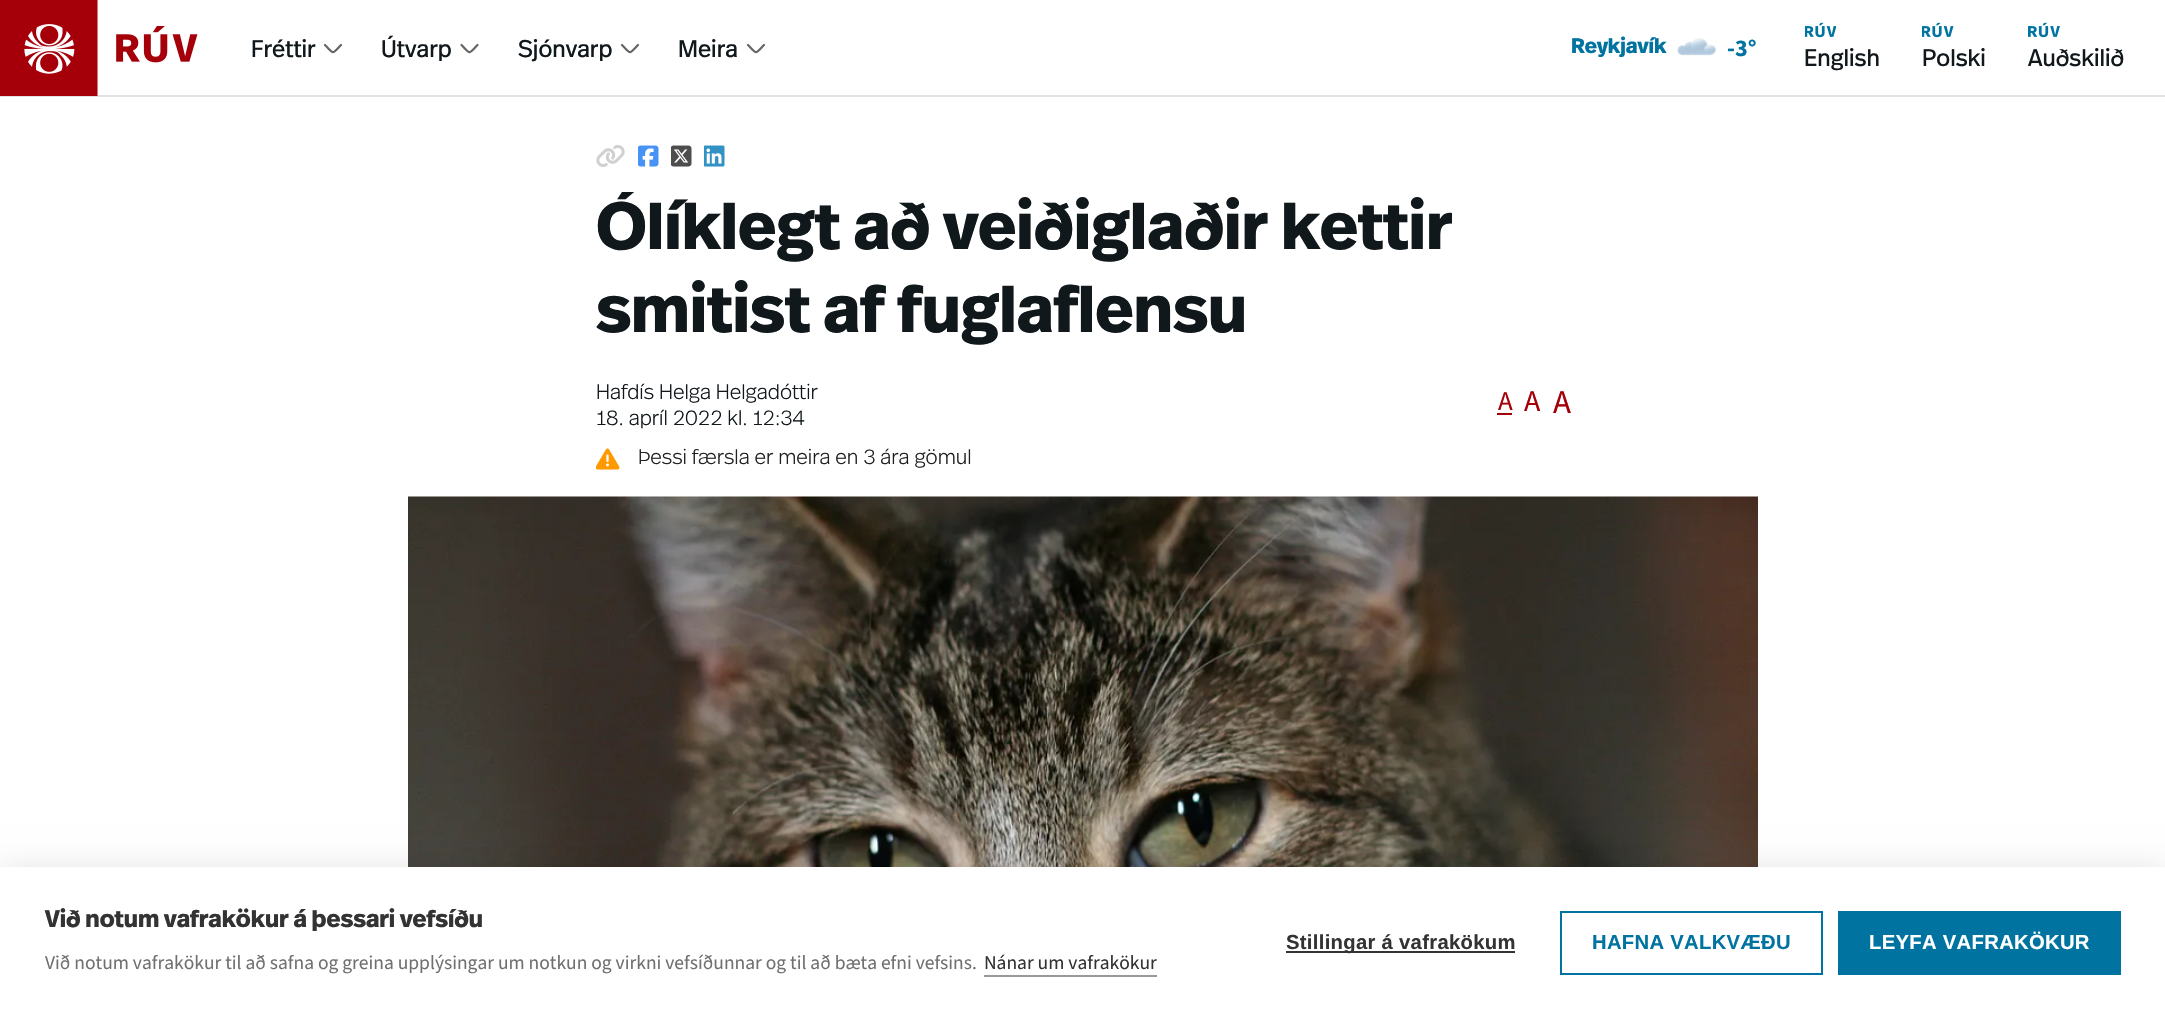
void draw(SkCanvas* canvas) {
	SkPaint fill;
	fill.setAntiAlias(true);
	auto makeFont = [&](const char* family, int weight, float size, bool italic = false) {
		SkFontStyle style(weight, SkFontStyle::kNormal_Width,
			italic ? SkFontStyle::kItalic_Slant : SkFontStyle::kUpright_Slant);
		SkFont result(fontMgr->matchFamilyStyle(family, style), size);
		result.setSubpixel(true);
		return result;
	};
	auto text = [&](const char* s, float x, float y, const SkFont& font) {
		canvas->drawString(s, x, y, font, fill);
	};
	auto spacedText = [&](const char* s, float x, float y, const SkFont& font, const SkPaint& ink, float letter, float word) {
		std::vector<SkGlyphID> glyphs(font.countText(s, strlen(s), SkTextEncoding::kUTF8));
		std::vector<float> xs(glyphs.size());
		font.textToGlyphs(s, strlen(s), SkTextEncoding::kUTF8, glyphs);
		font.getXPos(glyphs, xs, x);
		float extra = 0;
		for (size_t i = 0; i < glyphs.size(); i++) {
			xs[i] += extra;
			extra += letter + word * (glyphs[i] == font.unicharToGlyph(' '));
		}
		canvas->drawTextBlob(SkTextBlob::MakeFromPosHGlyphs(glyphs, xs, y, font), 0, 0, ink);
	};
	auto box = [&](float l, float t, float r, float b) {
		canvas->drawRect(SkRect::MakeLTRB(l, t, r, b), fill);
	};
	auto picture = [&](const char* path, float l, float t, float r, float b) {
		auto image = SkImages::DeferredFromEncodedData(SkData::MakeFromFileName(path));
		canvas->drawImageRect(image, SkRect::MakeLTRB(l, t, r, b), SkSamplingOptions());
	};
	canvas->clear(0xFFFFFFFF);
	fill.setColor(0xFFE2E2E2);
	box(0, 95, 2165, 97);
	picture("image0.png", 0, 0, 198, 96);
	fill.setStyle(SkPaint::kStroke_Style);
	fill.setStrokeWidth(2.2f);
	fill.setStrokeCap(SkPaint::kRound_Cap);
	fill.setStrokeJoin(SkPaint::kRound_Join);
	fill.setColor(0xFF646464);
	canvas->drawPath(SkPathBuilder().moveTo(341, 45).cubicTo(331.5f, 54.5f, 334.5f, 54.5f, 325, 45).detach(), fill);
	canvas->drawPath(SkPathBuilder().moveTo(477.5f, 45).cubicTo(468, 54.5f, 471, 54.5f, 461.5f, 45).detach(), fill);
	canvas->drawPath(SkPathBuilder().moveTo(638, 45).cubicTo(628.5f, 54.5f, 631.5f, 54.5f, 622, 45).detach(), fill);
	canvas->drawPath(SkPathBuilder().moveTo(764, 45).cubicTo(754.5f, 54.5f, 757.5f, 54.5f, 748, 45).detach(), fill);
	picture("image1.png", 1677, 38, 1716, 56);
	picture("image2.png", 1805, 22, 1836, 38);
	picture("image3.png", 1922, 22, 1954, 38);
	picture("image4.png", 2028, 22, 2060, 38);
	picture("image5.png", 596, 145, 625, 167);
	picture("image6.png", 638, 145, 659, 167);
	picture("image7.png", 671, 145, 692, 167);
	picture("image8.png", 704, 145, 725, 167);
	fill.setStyle(SkPaint::kFill_Style);
	fill.setColor(0xFFA5000A);
	box(1497, 413, 1512, 415);
	picture("image9.png", 596, 448, 620, 470);
	picture("image10.png", 408, 496, 1758, 867);
	fill.setColor(0x1A000000);
	fill.setMaskFilter(SkMaskFilter::MakeBlur(kNormal_SkBlurStyle, 15));
	canvas->drawRect(SkRect::MakeLTRB(0, 867, 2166, 1017), fill);
	fill.setMaskFilter(nullptr);
	fill.setColor(0xFFFFFFFF);
	box(0, 867, 2165, 1017);
	fill.setColor(0xFF999999);
	box(984, 975, 1157, 977);
	fill.setColor(0xFF333333);
	box(1286, 951, 1515, 953);
	fill.setStyle(SkPaint::kStroke_Style);
	fill.setStrokeWidth(2);
	fill.setStrokeCap(SkPaint::kButt_Cap);
	fill.setStrokeJoin(SkPaint::kMiter_Join);
	fill.setColor(0xFF0073A0);
	canvas->drawRect(SkRect::MakeLTRB(1561, 912, 1822, 974), fill);
	fill.setStyle(SkPaint::kFill_Style);
	box(1838, 911, 2121, 975);
	auto font1 = makeFont("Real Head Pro", 400, 24);
	fill.setColor(0xFF11181C);
	text("Fréttir", 251, 57, font1);
	text("Útvarp", 381, 57, font1);
	text("Sjónvarp", 518, 57, font1);
	text("Meira", 678, 57, font1);
	auto font2 = makeFont("Real Head Pro", 700, 21);
	fill.setColor(0xFF0073A0);
	text("Reykjavík", 1571, 53, font2);
	auto font3 = makeFont("Source Sans 3", 700, 24);
	text("-3°", 1727, 56, font3);
	fill.setColor(0xFF11181C);
	text("English", 1804, 66, font1);
	text("Polski", 1922, 66, font1);
	text("Auðskilið", 2028, 66, font1);
	canvas->save();
	canvas->clipRect(SkRect::MakeLTRB(596, 192, 1571, 357));
	auto font4 = makeFont("Real Head Pro", 700, 66);
	text("Ólíklegt að veiðiglaðir kettir", 596, 249, font4);
	canvas->restore();
	text("smitist af fuglaflensu", 596, 332, font4);
	auto font5 = makeFont("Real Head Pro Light", 300, 21);
	text("Hafdís Helga Helgadóttir", 596, 399, font5);
	text("18. apríl 2022 kl. 12:34", 596, 425, font5);
	auto font6 = makeFont("Source Sans 3", 400, 27);
	fill.setColor(0xFFA5000A);
	text("A", 1498, 410, font6);
	auto font7 = makeFont("Source Sans 3", 400, 30);
	text("A", 1524, 411, font7);
	auto font8 = makeFont("Source Sans 3", 400, 33);
	text("A", 1553, 413, font8);
	fill.setColor(0xFF202020);
	text("Þessi færsla er meira en 3 ára gömul", 638, 464, font5);
	auto font9 = makeFont("Real Head Pro", 700, 24);
	fill.setColor(0xFF333333);
	text("Við notum vafrakökur á þessari vefsíðu", 45, 927, font9);
	auto font10 = makeFont("Source Sans 3", 400, 19.5f);
	fill.setColor(0xFF707070);
	text("Við notum vafrakökur til að safna og greina upplýsingar um notkun og virkni vefsíðunnar og til að bæta efni vefsins.", 45, 969, font10);
	fill.setColor(0xFF333333);
	text("Nánar um vafrakökur", 984, 969, font10);
	auto font11 = makeFont("Liberation Sans", 700, 20.25f);
	spacedText("Stillingar á vafrakökum", 1286, 949, font11, fill, 0.3f, 0);
	fill.setColor(0xFF0073A0);
	spacedText("HAFNA VALKVÆÐU", 1592, 949, font11, fill, 0.3f, 0);
	fill.setColor(0xFFFFFFFF);
	spacedText("LEYFA VAFRAKÖKUR", 1869, 949, font11, fill, 0.3f, 0);
}
